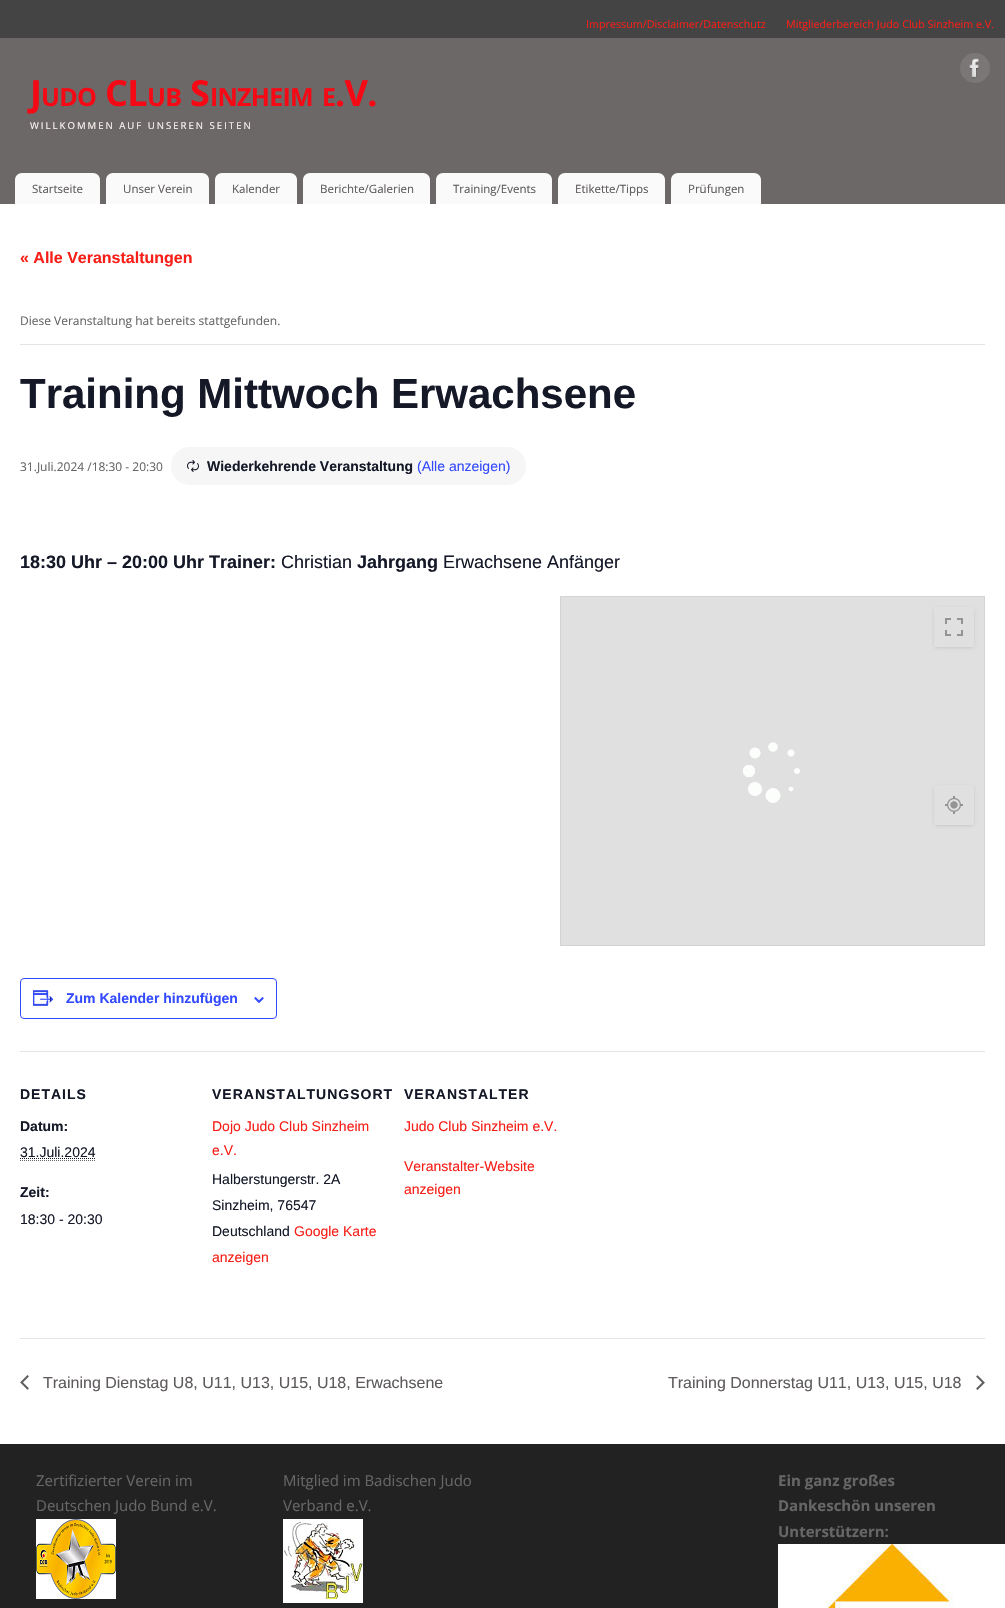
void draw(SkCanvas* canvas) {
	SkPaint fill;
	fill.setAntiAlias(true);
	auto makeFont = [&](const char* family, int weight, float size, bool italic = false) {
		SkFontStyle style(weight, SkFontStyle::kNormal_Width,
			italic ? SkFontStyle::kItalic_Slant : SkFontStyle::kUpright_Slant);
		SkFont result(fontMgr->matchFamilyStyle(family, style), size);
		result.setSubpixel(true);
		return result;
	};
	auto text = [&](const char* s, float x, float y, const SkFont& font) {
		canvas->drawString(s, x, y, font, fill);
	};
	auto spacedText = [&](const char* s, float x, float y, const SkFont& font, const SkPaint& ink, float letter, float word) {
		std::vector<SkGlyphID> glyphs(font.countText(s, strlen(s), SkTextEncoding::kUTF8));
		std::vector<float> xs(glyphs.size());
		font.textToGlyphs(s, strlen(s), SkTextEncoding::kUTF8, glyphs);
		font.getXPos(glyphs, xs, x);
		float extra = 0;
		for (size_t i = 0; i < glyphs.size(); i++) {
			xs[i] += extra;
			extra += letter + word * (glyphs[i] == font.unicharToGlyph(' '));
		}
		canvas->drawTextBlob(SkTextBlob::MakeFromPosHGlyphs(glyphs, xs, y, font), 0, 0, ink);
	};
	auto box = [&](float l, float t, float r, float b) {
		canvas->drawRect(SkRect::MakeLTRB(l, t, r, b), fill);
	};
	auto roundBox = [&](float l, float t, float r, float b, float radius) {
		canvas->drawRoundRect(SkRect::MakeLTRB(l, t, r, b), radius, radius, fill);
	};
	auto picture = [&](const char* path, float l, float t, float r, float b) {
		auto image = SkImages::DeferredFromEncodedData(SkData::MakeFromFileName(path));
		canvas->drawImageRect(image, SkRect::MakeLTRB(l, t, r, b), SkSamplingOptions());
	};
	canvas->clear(0xFF444444);
	fill.setColor(0xFF6C6868);
	box(0, 38, 1005, 204);
	fill.setColor(0xFF7B7777);
	canvas->drawCircle(975, 68, 15, fill);
	picture("image0.png", 969, 58, 979, 79);
	fill.setColor(0xFFFAFAFA);
	canvas->drawPath(SkPathBuilder().moveTo(22, 173).lineTo(93, 173).cubicTo(97, 173, 100, 176, 100, 180).lineTo(100, 204).lineTo(15, 204).lineTo(15, 180).cubicTo(15, 176, 18, 173, 22, 173).close().detach(), fill);
	canvas->drawPath(SkPathBuilder().moveTo(113, 173).lineTo(202, 173).cubicTo(206, 173, 209, 176, 209, 180).lineTo(209, 204).lineTo(106, 204).lineTo(106, 180).cubicTo(106, 176, 109, 173, 113, 173).close().detach(), fill);
	canvas->drawPath(SkPathBuilder().moveTo(222, 173).lineTo(290, 173).cubicTo(294, 173, 297, 176, 297, 180).lineTo(297, 204).lineTo(215, 204).lineTo(215, 180).cubicTo(215, 176, 218, 173, 222, 173).close().detach(), fill);
	canvas->drawPath(SkPathBuilder().moveTo(310, 173).lineTo(423, 173).cubicTo(427, 173, 430, 176, 430, 180).lineTo(430, 204).lineTo(303, 204).lineTo(303, 180).cubicTo(303, 176, 306, 173, 310, 173).close().detach(), fill);
	canvas->drawPath(SkPathBuilder().moveTo(443, 173).lineTo(545, 173).cubicTo(549, 173, 552, 176, 552, 180).lineTo(552, 204).lineTo(436, 204).lineTo(436, 180).cubicTo(436, 176, 439, 173, 443, 173).close().detach(), fill);
	canvas->drawPath(SkPathBuilder().moveTo(565, 173).lineTo(658, 173).cubicTo(662, 173, 665, 176, 665, 180).lineTo(665, 204).lineTo(558, 204).lineTo(558, 180).cubicTo(558, 176, 561, 173, 565, 173).close().detach(), fill);
	canvas->drawPath(SkPathBuilder().moveTo(678, 173).lineTo(754, 173).cubicTo(758, 173, 761, 176, 761, 180).lineTo(761, 204).lineTo(671, 204).lineTo(671, 180).cubicTo(671, 176, 674, 173, 678, 173).close().detach(), fill);
	fill.setColor(0xFFFFFFFF);
	box(0, 204, 1005, 1444);
	fill.setColor(0xFFE4E4E4);
	box(20, 344, 985, 345);
	fill.setColor(0xFFF7F6F6);
	roundBox(171, 447, 526, 485, 19);
	picture("image1.png", 187, 460, 199, 472);
	fill.setColor(0xFFE0E0E0);
	canvas->drawRect(SkRect::MakeLTRB(560.5f, 596.5f, 984.5f, 945.5f), fill);
	fill.setStyle(SkPaint::kStroke_Style);
	fill.setStrokeWidth(1);
	fill.setColor(0xFFD3D3D3);
	canvas->drawRect(SkRect::MakeLTRB(560.5f, 596.5f, 984.5f, 945.5f), fill);
	picture("image2.png", 743, 742, 800, 803);
	canvas->save();
	canvas->clipPath(SkPathBuilder(SkPathFillType::kEvenOdd).moveTo(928, 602).lineTo(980, 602).lineTo(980, 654).lineTo(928, 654).close().moveTo(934, 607).lineTo(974, 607).lineTo(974, 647).lineTo(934, 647).close().detach(), true);
	fill.setStyle(SkPaint::kFill_Style);
	fill.setColor(0x4D606060);
	fill.setMaskFilter(SkMaskFilter::MakeBlur(kNormal_SkBlurStyle, 2));
	canvas->drawRect(SkRect::MakeLTRB(935, 609, 973, 647), fill);
	fill.setMaskFilter(nullptr);
	canvas->restore();
	picture("image3.png", 945, 618, 963, 636);
	canvas->save();
	canvas->clipPath(SkPathBuilder(SkPathFillType::kEvenOdd).moveTo(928, 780).lineTo(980, 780).lineTo(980, 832).lineTo(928, 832).close().moveTo(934, 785).lineTo(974, 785).lineTo(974, 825).lineTo(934, 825).close().detach(), true);
	fill.setMaskFilter(SkMaskFilter::MakeBlur(kNormal_SkBlurStyle, 2));
	canvas->drawRect(SkRect::MakeLTRB(935, 787, 973, 825), fill);
	fill.setMaskFilter(nullptr);
	canvas->restore();
	picture("image4.png", 945, 796, 963, 814);
	fill.setStyle(SkPaint::kStroke_Style);
	fill.setColor(0xFF334AFF);
	canvas->drawRoundRect(SkRect::MakeLTRB(20.5f, 978.5f, 276.5f, 1018.5f), 3.5f, 3.5f, fill);
	picture("image5.png", 33, 990, 54, 1006);
	picture("image6.png", 254, 997, 264, 1003);
	fill.setStyle(SkPaint::kFill_Style);
	fill.setColor(0xFFE4E4E4);
	box(20, 1051, 985, 1052);
	fill.setStyle(SkPaint::kStroke_Style);
	fill.setColor(0xFF666666);
	fill.setPathEffect(SkDashPathEffect::Make({{1, 1}}, 0));
	canvas->drawPath(SkPathBuilder().moveTo(20, 1160.5f).lineTo(96, 1160.5f).detach(), fill);
	fill.setPathEffect(nullptr);
	fill.setColor(0xFF141827);
	fill.setPathEffect(SkDashPathEffect::Make({{1, 1}}, 0));
	canvas->drawPath(SkPathBuilder().moveTo(20, 1158.5f).lineTo(95.5f, 1158.5f).detach(), fill);
	fill.setPathEffect(nullptr);
	fill.setStyle(SkPaint::kFill_Style);
	fill.setColor(0xFFE4E4E4);
	box(20, 1338, 985, 1339);
	picture("image7.png", 20, 1375, 29, 1390);
	picture("image8.png", 976, 1375, 985, 1390);
	fill.setColor(0xFF222222);
	box(0, 1444, 1005, 1608);
	picture("image9.png", 36, 1519, 116, 1599);
	picture("image10.png", 283, 1519, 363, 1599);
	fill.setColor(0xFFFFFFFF);
	box(283, 1599, 363, 1603);
	picture("image11.png", 778, 1544, 1005, 1608);
	auto font1 = makeFont("Open Sans", 400, 10.75f);
	fill.setColor(0xFFF71F17);
	text("Impressum/Disclaimer/Datenschutz", 586, 28, font1);
	text("Mitgliederbereich Judo Club Sinzheim e.V.", 786, 28, font1);
	auto font2 = makeFont("Open Sans", 700, 36);
	fill.setColor(0xFFF50914);
	spacedText("J", 30, 106, font2, fill, -0.75f, 0);
	auto font3 = makeFont("Open Sans", 700, 25);
	spacedText("UDO", 41, 106, font3, fill, -0.75f, 0);
	spacedText("CL", 105, 106, font2, fill, -0.75f, 0);
	spacedText("UB", 147, 106, font3, fill, -0.75f, 0);
	spacedText("S", 190, 106, font2, fill, -0.75f, 0);
	spacedText("INZHEIM", 210, 106, font3, fill, -0.75f, 0);
	spacedText("E", 322, 106, font3, fill, -0.75f, 0);
	spacedText(".V.", 335, 106, font2, fill, -0.75f, 0);
	auto font4 = makeFont("Open Sans", 400, 9.6f);
	fill.setColor(0xFFFFF4F4);
	spacedText("WILLKOMMEN AUF UNSEREN SEITEN", 30, 129, font4, fill, 2, 0);
	auto font5 = makeFont("Open Sans", 400, 11.5f);
	fill.setColor(0xFF5F5B5B);
	text("Startseite", 32, 193, font5);
	text("Unser Verein", 123, 193, font5);
	text("Kalender", 232, 193, font5);
	text("Berichte/Galerien", 320, 193, font5);
	text("Training/Events", 453, 193, font5);
	text("Etikette/Tipps", 575, 193, font5);
	text("Prüfungen", 688, 193, font5);
	auto font6 = makeFont("Liberation Sans", 700, 16);
	fill.setColor(0xFFF71F17);
	text("« Alle Veranstaltungen", 20, 263, font6);
	auto font7 = makeFont("Open Sans", 400, 12);
	fill.setColor(0xFF666666);
	text("Diese Veranstaltung hat bereits stattgefunden.", 20, 325, font7);
	auto font8 = makeFont("Liberation Sans", 700, 42);
	fill.setColor(0xFF141827);
	text("Training Mittwoch Erwachsene", 20, 408, font8);
	fill.setColor(0xFF666666);
	text("31.Juli.2024 /18:30 - 20:30", 20, 471, font7);
	auto font9 = makeFont("Liberation Sans", 700, 14);
	fill.setColor(0xFF141827);
	text("Wiederkehrende Veranstaltung", 207, 471, font9);
	auto font10 = makeFont("Liberation Sans", 400, 14);
	fill.setColor(0xFF334AFF);
	text("(Alle anzeigen)", 417, 471, font10);
	auto font11 = makeFont("Liberation Sans", 700, 18);
	fill.setColor(0xFF141827);
	text("18:30 Uhr – 20:00 Uhr Trainer:", 20, 568, font11);
	auto font12 = makeFont("Liberation Sans", 400, 18);
	text("Christian", 281, 568, font12);
	text("Jahrgang", 357, 568, font11);
	text("Erwachsene Anfänger", 443, 568, font12);
	fill.setColor(0xFF334AFF);
	text("Zum Kalender hinzufügen", 66, 1003, font9);
	fill.setColor(0xFF141827);
	spacedText("DETAILS", 20, 1099, font9, fill, 1, 0);
	text("Datum:", 20, 1131, font9);
	text("31.Juli.2024", 20, 1157, font10);
	text("Zeit:", 20, 1197, font9);
	text("18:30 - 20:30", 20, 1224, font10);
	spacedText("VERANSTALTUNGSORT", 212, 1099, font9, fill, 1, 0);
	fill.setColor(0xFFF71F17);
	text("Dojo Judo Club Sinzheim", 212, 1131, font10);
	text("e.V.", 212, 1155, font10);
	fill.setColor(0xFF141827);
	text("Halberstungerstr. 2A", 212, 1184, font10);
	text("Sinzheim, 76547", 212, 1210, font10);
	text("Deutschland", 212, 1236, font10);
	fill.setColor(0xFFF71F17);
	text("Google Karte", 294, 1236, font10);
	text("anzeigen", 212, 1262, font10);
	fill.setColor(0xFF141827);
	spacedText("VERANSTALTER", 404, 1099, font9, fill, 1, 0);
	fill.setColor(0xFFF71F17);
	text("Judo Club Sinzheim e.V.", 404, 1131, font10);
	text("Veranstalter-Website", 404, 1171, font10);
	text("anzeigen", 404, 1194, font10);
	auto font13 = makeFont("Liberation Sans", 400, 16);
	fill.setColor(0xFF5F5B5B);
	text("Training Dienstag U8, U11, U13, U15, U18, Erwachsene", 43, 1388, font13);
	text("Training Donnerstag U11, U13, U15, U18", 668, 1388, font13);
	auto font14 = makeFont("Open Sans", 400, 15);
	fill.setColor(0xFF666666);
	text("Zertifizierter Verein im", 36, 1486, font14);
	text("Deutschen Judo Bund e.V.", 36, 1511, font14);
	text("Mitglied im Badischen Judo", 283, 1486, font14);
	text("Verband e.V.", 283, 1511, font14);
	auto font15 = makeFont("Open Sans", 700, 15);
	text("Ein ganz großes", 778, 1486, font15);
	text("Dankeschön unseren", 778, 1511, font15);
	text("Unterstützern:", 778, 1537, font15);
}
